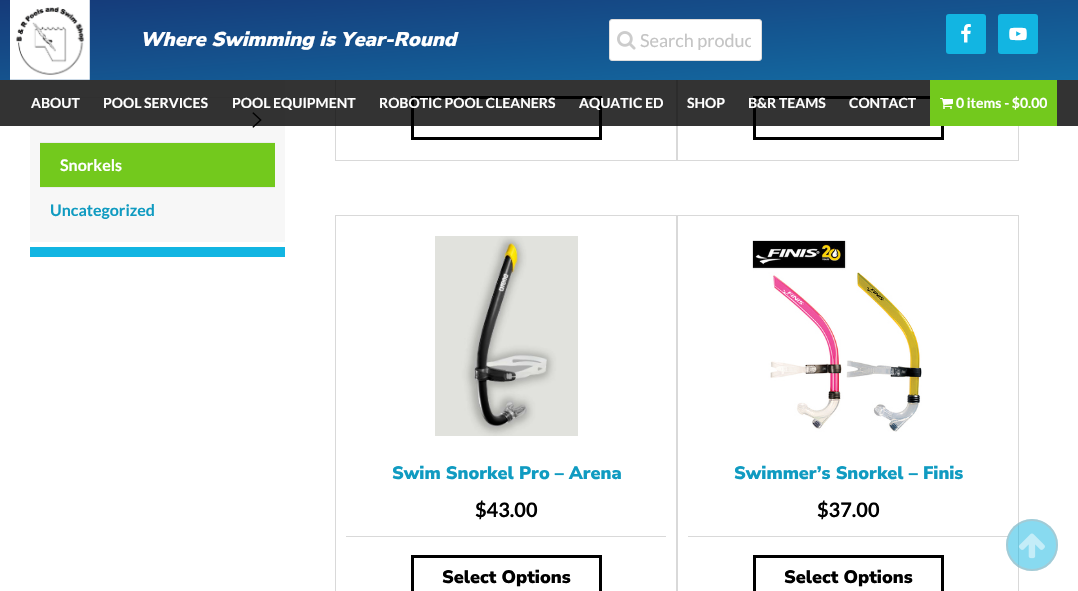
void draw(SkCanvas* canvas) {
	SkPaint fill;
	fill.setAntiAlias(true);
	auto makeFont = [&](const char* family, int weight, float size, bool italic = false) {
		SkFontStyle style(weight, SkFontStyle::kNormal_Width,
			italic ? SkFontStyle::kItalic_Slant : SkFontStyle::kUpright_Slant);
		SkFont result(fontMgr->matchFamilyStyle(family, style), size);
		result.setSubpixel(true);
		return result;
	};
	auto text = [&](const char* s, float x, float y, const SkFont& font) {
		canvas->drawString(s, x, y, font, fill);
	};
	auto box = [&](float l, float t, float r, float b) {
		canvas->drawRect(SkRect::MakeLTRB(l, t, r, b), fill);
	};
	auto roundBox = [&](float l, float t, float r, float b, float radius) {
		canvas->drawRoundRect(SkRect::MakeLTRB(l, t, r, b), radius, radius, fill);
	};
	auto picture = [&](const char* path, float l, float t, float r, float b) {
		auto image = SkImages::DeferredFromEncodedData(SkData::MakeFromFileName(path));
		canvas->drawImageRect(image, SkRect::MakeLTRB(l, t, r, b), SkSamplingOptions());
	};
	canvas->clear(0xFFFFFFFF);
	fill.setStyle(SkPaint::kStroke_Style);
	fill.setStrokeWidth(1);
	fill.setColor(0xFFD9D9D9);
	canvas->drawRect(SkRect::MakeLTRB(335.5f, -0.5f, 676.5f, 160.5f), fill);
	canvas->drawRect(SkRect::MakeLTRB(677.5f, -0.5f, 1018.5f, 160.5f), fill);
	fill.setStyle(SkPaint::kFill_Style);
	{
		const SkColor colors[] = {0xFF153A79, 0xFF146CA3};
		const float stops[] = {0, 1};
		const SkPoint ends[] = {{533, -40}, {545, 120}};
		fill.setShader(SkGradientShader::MakeLinear(ends, colors, stops, 2, SkTileMode::kClamp));
		fill.setAlpha(255);
	}
	box(0, 0, 1078, 80);
	picture("image0.png", 10, 0, 90, 80);
	fill.setShader(nullptr);
	fill.setColor(0xFFFFFFFF);
	canvas->drawRoundRect(SkRect::MakeLTRB(609.5f, 19.5f, 761.5f, 60.5f), 2.5f, 2.5f, fill);
	fill.setStyle(SkPaint::kStroke_Style);
	fill.setColor(0xFFDDDDDD);
	canvas->drawRoundRect(SkRect::MakeLTRB(609.5f, 19.5f, 761.5f, 60.5f), 2.5f, 2.5f, fill);
	picture("image1.png", 617, 31, 636, 50);
	fill.setStyle(SkPaint::kFill_Style);
	fill.setColor(0xFF12B5E2);
	roundBox(946, 14, 986, 54, 3);
	picture("image2.png", 961, 24, 971, 43);
	roundBox(998, 14, 1038, 54, 3);
	picture("image3.png", 1009, 27, 1027, 41);
	fill.setColor(0xFFF7F7F7);
	box(30, 80, 285, 242);
	fill.setColor(0xFFEDEDED);
	box(40, 97, 275, 98);
	picture("image5.png", 252, 112, 262, 128);
	fill.setStyle(SkPaint::kStroke_Style);
	fill.setStrokeWidth(3);
	fill.setColor(0xFF000000);
	canvas->drawRect(SkRect::MakeLTRB(412.5f, 97.5f, 600.5f, 138.5f), fill);
	canvas->drawRect(SkRect::MakeLTRB(754.5f, 97.5f, 942.5f, 138.5f), fill);
	fill.setStyle(SkPaint::kFill_Style);
	fill.setColor(0xCC000000);
	box(0, 80, 1078, 126);
	fill.setColor(0xFF73C91D);
	box(930, 80, 1057, 126);
	picture("image4.png", 940, 98, 953, 109);
	fill.setColor(0xFFEDEDED);
	box(40, 142, 275, 143);
	fill.setColor(0xFF73C91D);
	box(40, 143, 275, 187);
	fill.setColor(0xFFEDEDED);
	box(40, 187, 275, 188);
	fill.setColor(0xFF12B5E2);
	box(30, 247, 285, 257);
	fill.setStyle(SkPaint::kStroke_Style);
	fill.setStrokeWidth(1);
	fill.setColor(0xFFD9D9D9);
	canvas->drawRect(SkRect::MakeLTRB(335.5f, 215.5f, 676.5f, 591.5f), fill);
	picture("image6.png", 435, 236, 578, 436);
	fill.setStyle(SkPaint::kFill_Style);
	box(346, 536, 666, 537);
	fill.setStyle(SkPaint::kStroke_Style);
	fill.setStrokeWidth(3);
	fill.setColor(0xFF000000);
	canvas->drawRect(SkRect::MakeLTRB(412.5f, 556.5f, 600.5f, 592.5f), fill);
	fill.setStrokeWidth(1);
	fill.setColor(0xFFD9D9D9);
	canvas->drawRect(SkRect::MakeLTRB(677.5f, 215.5f, 1018.5f, 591.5f), fill);
	picture("image7.png", 752, 240, 922, 432);
	fill.setStyle(SkPaint::kFill_Style);
	box(688, 536, 1008, 537);
	fill.setStyle(SkPaint::kStroke_Style);
	fill.setStrokeWidth(3);
	fill.setColor(0xFF000000);
	canvas->drawRect(SkRect::MakeLTRB(754.5f, 556.5f, 942.5f, 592.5f), fill);
	fill.setStyle(SkPaint::kFill_Style);
	fill.setColor(0x8012B5E2);
	canvas->drawCircle(1032, 545, 26, fill);
	fill.setStyle(SkPaint::kStroke_Style);
	fill.setStrokeWidth(2);
	fill.setColor(0x80BBBBBB);
	canvas->drawCircle(1032, 545, 25, fill);
	picture("image8.png", 1018, 533, 1045, 559);
	auto font1 = makeFont("Nunito Sans", 900, 20, true);
	fill.setStyle(SkPaint::kFill_Style);
	fill.setColor(0xFFFFFFFF);
	text("Where Swimming is Year-Round", 140, 46, font1);
	canvas->save();
	canvas->clipRect(SkRect::MakeLTRB(620, 29, 751, 51));
	auto font2 = makeFont("Lato", 400, 18);
	fill.setColor(0xFFC4C4C4);
	text("Search produc", 640, 47, font2);
	canvas->restore();
	auto font3 = makeFont("Lato", 700, 14);
	fill.setColor(0xFFFFFFFF);
	text("ABOUT", 31, 108, font3);
	text("POOL SERVICES", 103, 108, font3);
	text("POOL EQUIPMENT", 232, 108, font3);
	text("ROBOTIC POOL CLEANERS", 379, 108, font3);
	text("AQUATIC ED", 579, 108, font3);
	text("SHOP", 687, 108, font3);
	text("B&R TEAMS", 748, 108, font3);
	text("CONTACT", 849, 108, font3);
	text("0 items - $0.00", 956, 108, font3);
	auto font4 = makeFont("Lato", 700, 16);
	text("Snorkels", 60, 171, font4);
	fill.setColor(0xFF109BC1);
	text("Uncategorized", 50, 216, font4);
	auto font5 = makeFont("Nunito Sans", 900, 18);
	text("Swim Snorkel Pro – Arena", 392, 479, font5);
	auto font6 = makeFont("Lato", 700, 20);
	fill.setColor(0xFF000000);
	text("$43.00", 475, 517, font6);
	text("Select Options", 442, 583, font5);
	fill.setColor(0xFF109BC1);
	text("Swimmer’s Snorkel – Finis", 734, 479, font5);
	fill.setColor(0xFF000000);
	text("$37.00", 817, 517, font6);
	text("Select Options", 784, 583, font5);
}
